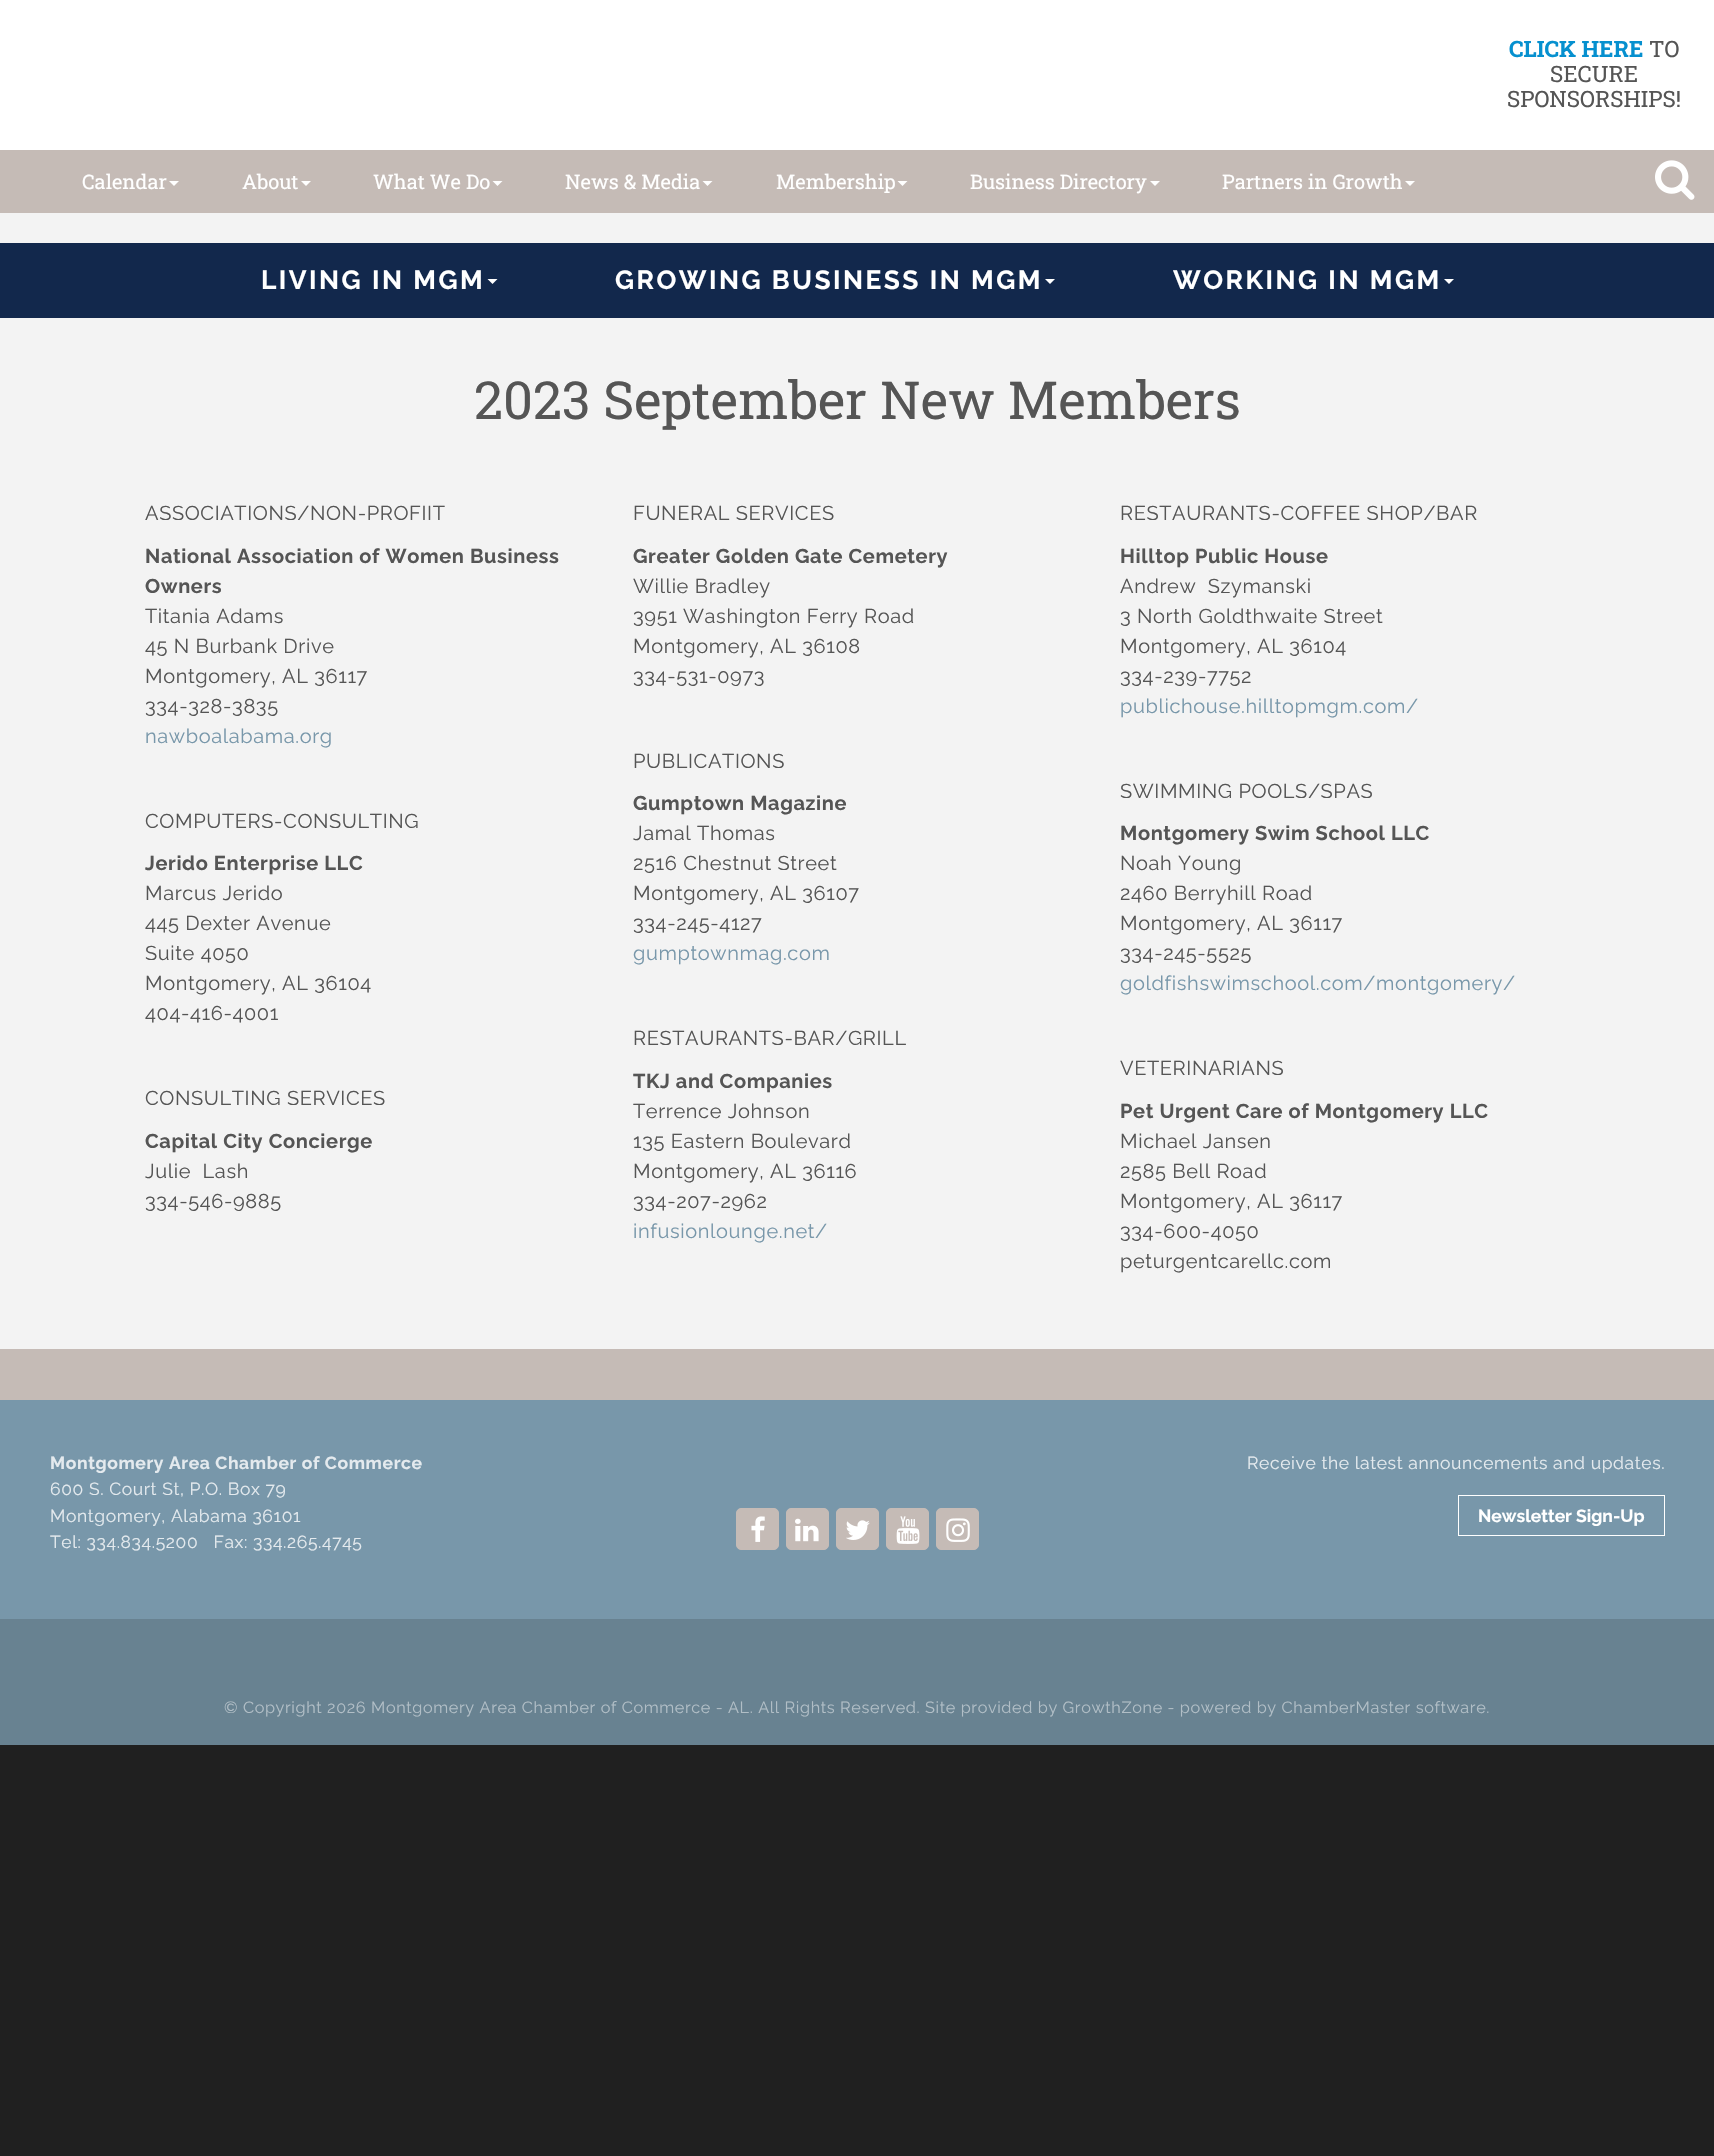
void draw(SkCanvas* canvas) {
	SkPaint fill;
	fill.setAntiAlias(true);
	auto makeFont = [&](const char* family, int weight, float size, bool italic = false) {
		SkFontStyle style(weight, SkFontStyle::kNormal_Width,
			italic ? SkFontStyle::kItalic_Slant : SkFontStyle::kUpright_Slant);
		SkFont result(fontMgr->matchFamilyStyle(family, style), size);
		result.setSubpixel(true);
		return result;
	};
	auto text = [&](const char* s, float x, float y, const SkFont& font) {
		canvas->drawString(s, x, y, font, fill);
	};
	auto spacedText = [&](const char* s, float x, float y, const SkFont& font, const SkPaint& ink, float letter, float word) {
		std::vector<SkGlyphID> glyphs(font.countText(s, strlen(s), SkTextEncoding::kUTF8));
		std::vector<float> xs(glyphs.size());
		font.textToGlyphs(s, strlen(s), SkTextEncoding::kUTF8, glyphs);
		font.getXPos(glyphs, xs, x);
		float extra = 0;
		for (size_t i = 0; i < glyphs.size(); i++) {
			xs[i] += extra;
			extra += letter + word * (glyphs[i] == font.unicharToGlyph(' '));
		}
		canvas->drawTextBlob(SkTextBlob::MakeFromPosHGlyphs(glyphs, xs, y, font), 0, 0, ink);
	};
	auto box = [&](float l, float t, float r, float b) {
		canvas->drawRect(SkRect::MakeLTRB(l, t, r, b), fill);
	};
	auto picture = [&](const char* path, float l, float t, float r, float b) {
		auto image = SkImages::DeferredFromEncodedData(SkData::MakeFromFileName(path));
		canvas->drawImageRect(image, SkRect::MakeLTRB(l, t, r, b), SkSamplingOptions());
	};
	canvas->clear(0xFF202020);
	fill.setColor(0xFFF3F3F3);
	box(0, 213, 1714, 1349);
	fill.setColor(0xFFFFFFFF);
	box(0, 0, 1714, 150);
	fill.setColor(0xFFC5BBB6);
	box(0, 150, 1714, 213);
	fill.setColor(0xFFFFFFFF);
	canvas->drawPath(SkPathBuilder().moveTo(169, 181).lineTo(179, 181).lineTo(174, 186).close().detach(), fill);
	canvas->drawPath(SkPathBuilder().moveTo(301, 181).lineTo(311, 181).lineTo(306, 186).close().detach(), fill);
	canvas->drawPath(SkPathBuilder().moveTo(492.5f, 181).lineTo(502.5f, 181).lineTo(497.5f, 186).close().detach(), fill);
	canvas->drawPath(SkPathBuilder().moveTo(702.5f, 181).lineTo(712.5f, 181).lineTo(707.5f, 186).close().detach(), fill);
	canvas->drawPath(SkPathBuilder().moveTo(897.5f, 181).lineTo(907.5f, 181).lineTo(902.5f, 186).close().detach(), fill);
	canvas->drawPath(SkPathBuilder().moveTo(1150, 181).lineTo(1160, 181).lineTo(1155, 186).close().detach(), fill);
	canvas->drawPath(SkPathBuilder().moveTo(1405, 181).lineTo(1415, 181).lineTo(1410, 186).close().detach(), fill);
	fill.setColor(0xFFC5BBB6);
	canvas->drawPath(SkPathBuilder().moveTo(1652, 151).lineTo(1691, 151).cubicTo(1693, 151, 1695, 153, 1695, 155).cubicTo(1695, 149, 1689, 150, 1685, 150).lineTo(1659, 150).cubicTo(1655, 150, 1649, 149, 1649, 155).cubicTo(1649, 153, 1650, 151, 1652, 151).close().detach(), fill);
	picture("image0.png", 1655, 160, 1695, 200);
	fill.setColor(0xFF12284C);
	box(0, 243, 1714, 318);
	fill.setColor(0xFFFFFFFF);
	canvas->drawPath(SkPathBuilder().moveTo(487.5f, 279).lineTo(497.5f, 279).lineTo(492.5f, 284).close().detach(), fill);
	canvas->drawPath(SkPathBuilder().moveTo(1045, 279).lineTo(1055, 279).lineTo(1050, 284).close().detach(), fill);
	canvas->drawPath(SkPathBuilder().moveTo(1444, 279).lineTo(1454, 279).lineTo(1449, 284).close().detach(), fill);
	fill.setColor(0xFF7897AA);
	box(0, 1400, 1714, 1619);
	fill.setColor(0xFFC5BBB6);
	box(0, 1349, 1714, 1400);
	canvas->drawRoundRect(SkRect::MakeLTRB(736.5f, 1508.5f, 778.5f, 1549.5f), 4.5f, 4.5f, fill);
	fill.setStyle(SkPaint::kStroke_Style);
	fill.setStrokeWidth(1);
	canvas->drawRoundRect(SkRect::MakeLTRB(736.5f, 1508.5f, 778.5f, 1549.5f), 4.5f, 4.5f, fill);
	picture("image1.png", 751, 1516, 765, 1542);
	fill.setStyle(SkPaint::kFill_Style);
	canvas->drawRoundRect(SkRect::MakeLTRB(786.5f, 1508.5f, 828.5f, 1549.5f), 4.5f, 4.5f, fill);
	fill.setStyle(SkPaint::kStroke_Style);
	canvas->drawRoundRect(SkRect::MakeLTRB(786.5f, 1508.5f, 828.5f, 1549.5f), 4.5f, 4.5f, fill);
	picture("image2.png", 795, 1518, 819, 1542);
	fill.setStyle(SkPaint::kFill_Style);
	canvas->drawRoundRect(SkRect::MakeLTRB(836.5f, 1508.5f, 878.5f, 1549.5f), 4.5f, 4.5f, fill);
	fill.setStyle(SkPaint::kStroke_Style);
	canvas->drawRoundRect(SkRect::MakeLTRB(836.5f, 1508.5f, 878.5f, 1549.5f), 4.5f, 4.5f, fill);
	picture("image3.png", 846, 1520, 870, 1540);
	fill.setStyle(SkPaint::kFill_Style);
	canvas->drawRoundRect(SkRect::MakeLTRB(886.5f, 1508.5f, 928.5f, 1549.5f), 4.5f, 4.5f, fill);
	fill.setStyle(SkPaint::kStroke_Style);
	canvas->drawRoundRect(SkRect::MakeLTRB(886.5f, 1508.5f, 928.5f, 1549.5f), 4.5f, 4.5f, fill);
	picture("image4.png", 896, 1516, 920, 1544);
	fill.setStyle(SkPaint::kFill_Style);
	canvas->drawRoundRect(SkRect::MakeLTRB(936.5f, 1508.5f, 978.5f, 1549.5f), 4.5f, 4.5f, fill);
	fill.setStyle(SkPaint::kStroke_Style);
	canvas->drawRoundRect(SkRect::MakeLTRB(936.5f, 1508.5f, 978.5f, 1549.5f), 4.5f, 4.5f, fill);
	picture("image5.png", 946, 1518, 970, 1542);
	fill.setColor(0xFFFFFFFF);
	canvas->drawRect(SkRect::MakeLTRB(1458.5f, 1495.5f, 1664.5f, 1535.5f), fill);
	fill.setStyle(SkPaint::kFill_Style);
	fill.setColor(0xFF688291);
	box(0, 1619, 1714, 1745);
	auto font1 = makeFont("Roboto Slab", 700, 22.5f);
	fill.setColor(0xFF0690CF);
	text("CLICK HERE", 1509, 57, font1);
	auto font2 = makeFont("Roboto Slab", 400, 22.5f);
	fill.setColor(0xFF555555);
	text("TO", 1649, 57, font2);
	text("SECURE", 1550, 82, font2);
	text("SPONSORSHIPS!", 1507, 107, font2);
	auto font3 = makeFont("Roboto Slab", 400, 20);
	fill.setColor(0xFFFFFFFF);
	text("Calendar", 82, 189, font3);
	text("About", 242, 189, font3);
	text("What We Do", 373, 189, font3);
	text("News & Media", 565, 189, font3);
	text("Membership", 776, 189, font3);
	text("Business Directory", 970, 189, font3);
	text("Partners in Growth", 1222, 189, font3);
	auto font4 = makeFont("Raleway", 700, 26.25f);
	spacedText("LIVING IN MGM", 261, 289, font4, fill, 2.5f, 0);
	spacedText("GROWING BUSINESS IN MGM", 615, 289, font4, fill, 2.5f, 0);
	spacedText("WORKING IN MGM", 1173, 289, font4, fill, 2.5f, 0);
	auto font5 = makeFont("Roboto Slab", 400, 52.5f);
	fill.setColor(0xFF555555);
	text("2023 September New Members", 474, 419, font5);
	auto font6 = makeFont("Raleway", 400, 20);
	spacedText("ASSOCIATIONS/NON-PROFIIT", 145, 520, font6, fill, 0.62f, 0);
	auto font7 = makeFont("Raleway", 700, 20);
	spacedText("National Association of Women Business", 145, 563, font7, fill, 0.62f, 0);
	spacedText("Owners", 145, 593, font7, fill, 0.62f, 0);
	spacedText("Titania Adams", 145, 623, font6, fill, 0.62f, 0);
	spacedText("45 N Burbank Drive", 145, 653, font6, fill, 0.62f, 0);
	spacedText("Montgomery, AL 36117", 145, 683, font6, fill, 0.62f, 0);
	spacedText("334-328-3835", 145, 713, font6, fill, 0.62f, 0);
	fill.setColor(0xFF7897AA);
	spacedText("nawboalabama.org", 145, 743, font6, fill, 0.62f, 0);
	fill.setColor(0xFF555555);
	spacedText("COMPUTERS-CONSULTING", 145, 828, font6, fill, 0.62f, 0);
	spacedText("Jerido Enterprise LLC", 145, 870, font7, fill, 0.62f, 0);
	spacedText("Marcus Jerido", 145, 900, font6, fill, 0.62f, 0);
	spacedText("445 Dexter Avenue", 145, 930, font6, fill, 0.62f, 0);
	spacedText("Suite 4050", 145, 960, font6, fill, 0.62f, 0);
	spacedText("Montgomery, AL 36104", 145, 990, font6, fill, 0.62f, 0);
	spacedText("404-416-4001", 145, 1020, font6, fill, 0.62f, 0);
	spacedText("CONSULTING SERVICES", 145, 1105, font6, fill, 0.62f, 0);
	spacedText("Capital City Concierge", 145, 1148, font7, fill, 0.62f, 0);
	spacedText("Julie  Lash", 145, 1178, font6, fill, 0.62f, 0);
	spacedText("334-546-9885", 145, 1208, font6, fill, 0.62f, 0);
	spacedText("FUNERAL SERVICES", 633, 520, font6, fill, 0.62f, 0);
	spacedText("Greater Golden Gate Cemetery", 633, 563, font7, fill, 0.62f, 0);
	spacedText("Willie Bradley", 633, 593, font6, fill, 0.62f, 0);
	spacedText("3951 Washington Ferry Road", 633, 623, font6, fill, 0.62f, 0);
	spacedText("Montgomery, AL 36108", 633, 653, font6, fill, 0.62f, 0);
	spacedText("334-531-0973", 633, 683, font6, fill, 0.62f, 0);
	spacedText("PUBLICATIONS", 633, 768, font6, fill, 0.62f, 0);
	spacedText("Gumptown Magazine", 633, 810, font7, fill, 0.62f, 0);
	spacedText("Jamal Thomas", 633, 840, font6, fill, 0.62f, 0);
	spacedText("2516 Chestnut Street", 633, 870, font6, fill, 0.62f, 0);
	spacedText("Montgomery, AL 36107", 633, 900, font6, fill, 0.62f, 0);
	spacedText("334-245-4127", 633, 930, font6, fill, 0.62f, 0);
	fill.setColor(0xFF7897AA);
	spacedText("gumptownmag.com", 633, 960, font6, fill, 0.62f, 0);
	fill.setColor(0xFF555555);
	spacedText("RESTAURANTS-BAR/GRILL", 633, 1045, font6, fill, 0.62f, 0);
	spacedText("TKJ and Companies", 633, 1088, font7, fill, 0.62f, 0);
	spacedText("Terrence Johnson", 633, 1118, font6, fill, 0.62f, 0);
	spacedText("135 Eastern Boulevard", 633, 1148, font6, fill, 0.62f, 0);
	spacedText("Montgomery, AL 36116", 633, 1178, font6, fill, 0.62f, 0);
	spacedText("334-207-2962", 633, 1208, font6, fill, 0.62f, 0);
	fill.setColor(0xFF7897AA);
	spacedText("infusionlounge.net/", 633, 1238, font6, fill, 0.62f, 0);
	fill.setColor(0xFF555555);
	spacedText("RESTAURANTS-COFFEE SHOP/BAR", 1120, 520, font6, fill, 0.62f, 0);
	spacedText("Hilltop Public House", 1120, 563, font7, fill, 0.62f, 0);
	spacedText("Andrew  Szymanski", 1120, 593, font6, fill, 0.62f, 0);
	spacedText("3 North Goldthwaite Street", 1120, 623, font6, fill, 0.62f, 0);
	spacedText("Montgomery, AL 36104", 1120, 653, font6, fill, 0.62f, 0);
	spacedText("334-239-7752", 1120, 683, font6, fill, 0.62f, 0);
	fill.setColor(0xFF7897AA);
	spacedText("publichouse.hilltopmgm.com/", 1120, 713, font6, fill, 0.62f, 0);
	fill.setColor(0xFF555555);
	spacedText("SWIMMING POOLS/SPAS", 1120, 798, font6, fill, 0.62f, 0);
	spacedText("Montgomery Swim School LLC", 1120, 840, font7, fill, 0.62f, 0);
	spacedText("Noah Young", 1120, 870, font6, fill, 0.62f, 0);
	spacedText("2460 Berryhill Road", 1120, 900, font6, fill, 0.62f, 0);
	spacedText("Montgomery, AL 36117", 1120, 930, font6, fill, 0.62f, 0);
	spacedText("334-245-5525", 1120, 960, font6, fill, 0.62f, 0);
	fill.setColor(0xFF7897AA);
	spacedText("goldfishswimschool.com/montgomery/", 1120, 990, font6, fill, 0.62f, 0);
	fill.setColor(0xFF555555);
	spacedText("VETERINARIANS", 1120, 1075, font6, fill, 0.62f, 0);
	spacedText("Pet Urgent Care of Montgomery LLC", 1120, 1118, font7, fill, 0.62f, 0);
	spacedText("Michael Jansen", 1120, 1148, font6, fill, 0.62f, 0);
	spacedText("2585 Bell Road", 1120, 1178, font6, fill, 0.62f, 0);
	spacedText("Montgomery, AL 36117", 1120, 1208, font6, fill, 0.62f, 0);
	spacedText("334-600-4050", 1120, 1238, font6, fill, 0.62f, 0);
	spacedText("peturgentcarellc.com", 1120, 1268, font6, fill, 0.62f, 0);
	auto font8 = makeFont("Raleway", 700, 17.5f);
	fill.setColor(0xFFE4EAEE);
	spacedText("Montgomery Area Chamber of Commerce", 50, 1469, font8, fill, 0.62f, 0);
	auto font9 = makeFont("Raleway", 400, 17.5f);
	spacedText("600 S. Court St, P.O. Box 79", 50, 1495, font9, fill, 0.62f, 0);
	spacedText("Montgomery, Alabama 36101", 50, 1522, font9, fill, 0.62f, 0);
	spacedText("Tel: 334.834.5200   Fax: 334.265.4745", 50, 1548, font9, fill, 0.62f, 0);
	spacedText("Receive the latest announcements and updates.", 1247, 1469, font9, fill, 0.62f, 0);
	fill.setColor(0xFFFFFFFF);
	text("Newsletter Sign-Up", 1478, 1522, font8);
	auto font10 = makeFont("Raleway", 400, 16.25f);
	fill.setColor(0xFFB1BEC6);
	spacedText("© Copyright 2026 Montgomery Area Chamber of Commerce - AL. All Rights Reserved. Site provided by GrowthZone - powered by ChamberMaster software.", 224, 1713, font10, fill, 0.62f, 0);
}
